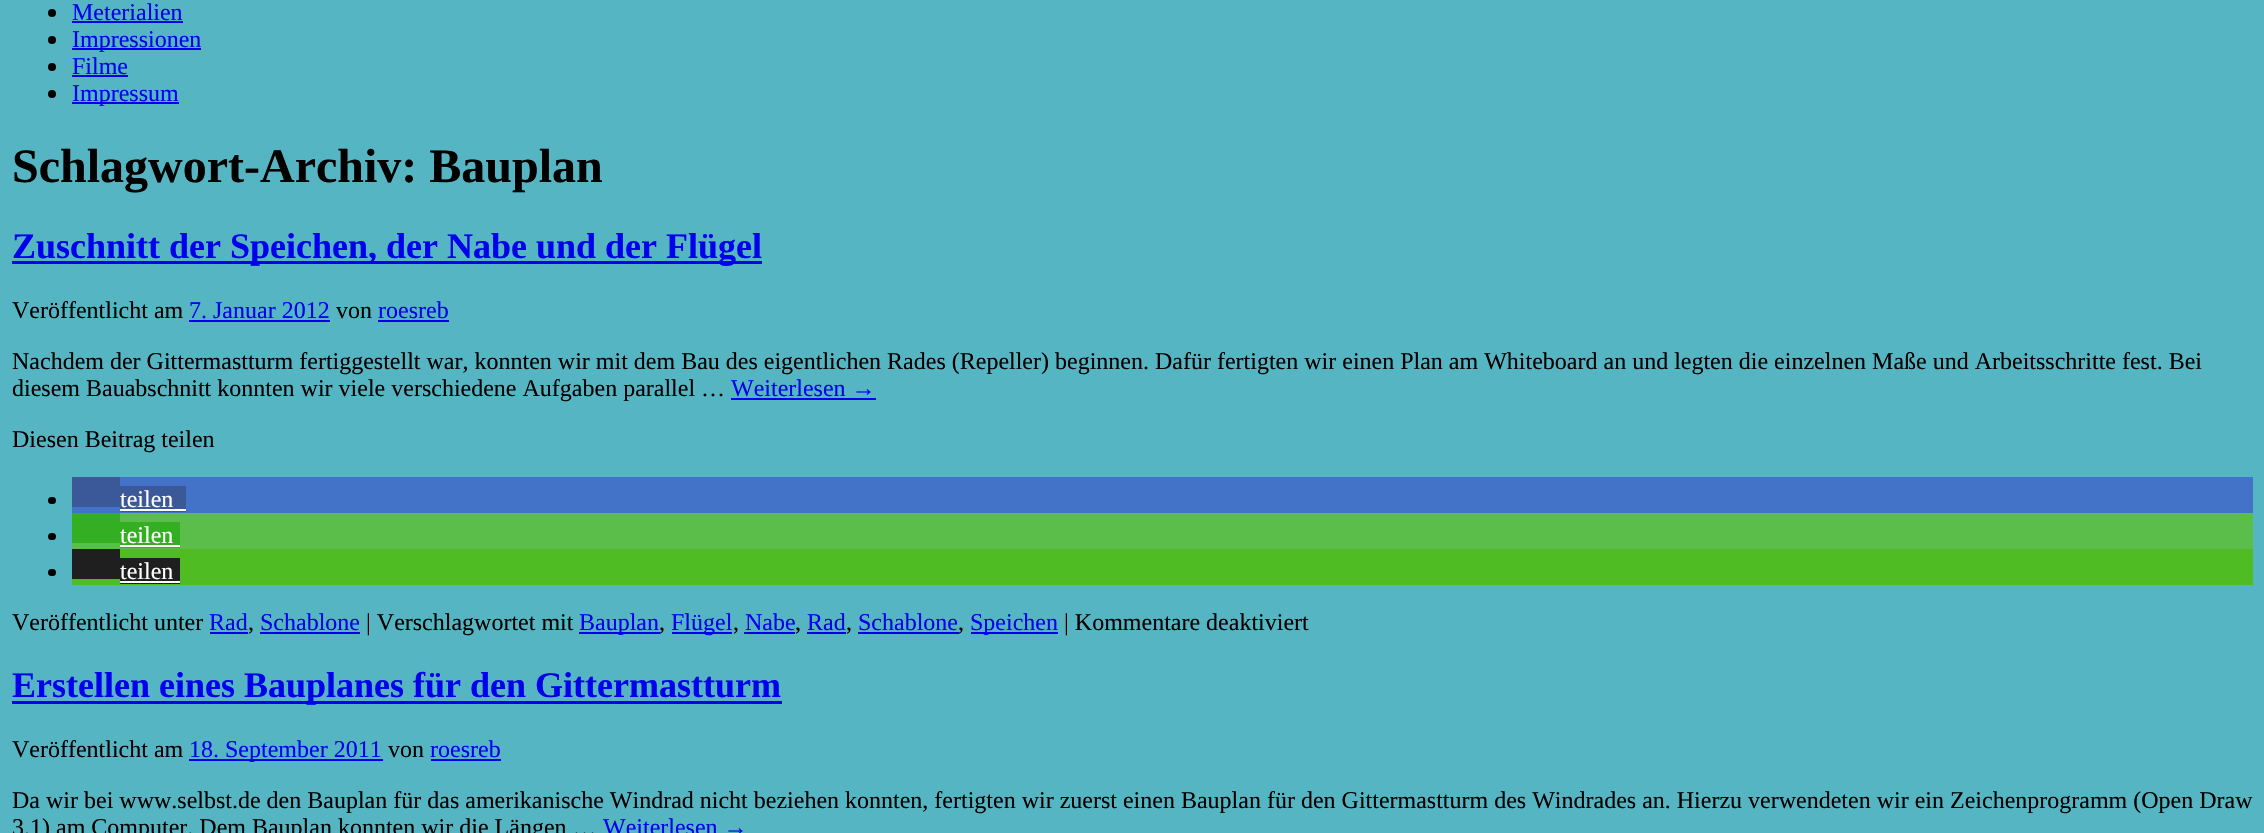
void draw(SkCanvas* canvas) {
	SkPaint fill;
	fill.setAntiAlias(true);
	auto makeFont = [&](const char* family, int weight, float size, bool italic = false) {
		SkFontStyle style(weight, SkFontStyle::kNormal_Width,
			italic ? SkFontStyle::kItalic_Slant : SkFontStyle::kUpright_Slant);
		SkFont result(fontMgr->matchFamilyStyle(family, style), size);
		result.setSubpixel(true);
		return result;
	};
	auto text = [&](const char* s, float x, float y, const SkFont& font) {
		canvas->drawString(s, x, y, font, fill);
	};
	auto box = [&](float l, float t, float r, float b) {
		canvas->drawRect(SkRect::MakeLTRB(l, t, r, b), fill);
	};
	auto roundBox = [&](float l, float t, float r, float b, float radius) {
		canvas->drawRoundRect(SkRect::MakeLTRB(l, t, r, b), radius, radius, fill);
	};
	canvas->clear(0xFF55B5C2);
	fill.setColor(0xFF000000);
	canvas->drawCircle(52, 13, 4, fill);
	fill.setColor(0xFF0000EE);
	box(72, 21, 183, 23);
	fill.setColor(0xFF000000);
	canvas->drawCircle(52, 40, 4, fill);
	fill.setColor(0xFF0000EE);
	box(72, 48, 201, 50);
	fill.setColor(0xFF000000);
	canvas->drawCircle(52, 67, 4, fill);
	fill.setColor(0xFF0000EE);
	box(72, 75, 128, 77);
	fill.setColor(0xFF000000);
	canvas->drawCircle(52, 94, 4, fill);
	fill.setColor(0xFF0000EE);
	box(72, 102, 179, 104);
	box(12, 261, 762, 264);
	box(189, 320, 330, 322);
	box(378, 320, 449, 322);
	box(731, 398, 876, 400);
	fill.setColor(0xFF4273C8);
	box(72, 477, 2253, 513);
	fill.setColor(0xFF000000);
	roundBox(48, 497, 56, 504, 3.5f);
	fill.setColor(0xFF3B5998);
	box(72, 477, 120, 507);
	box(120, 486, 186, 512);
	fill.setColor(0xFFFFFFFF);
	box(120, 509, 186, 511);
	fill.setColor(0xFF5CBE4A);
	box(72, 513, 2253, 549);
	fill.setColor(0xFF000000);
	roundBox(48, 533, 56, 540, 3.5f);
	fill.setColor(0xFF34AF23);
	box(72, 513, 120, 543);
	box(120, 522, 180, 548);
	fill.setColor(0xFFFFFFFF);
	box(120, 545, 180, 547);
	fill.setColor(0xFF4FBC24);
	box(72, 549, 2253, 585);
	fill.setColor(0xFF000000);
	roundBox(48, 569, 56, 576, 3.5f);
	fill.setColor(0xFF1F1F1F);
	box(72, 549, 120, 579);
	box(120, 558, 180, 584);
	fill.setColor(0xFFFFFFFF);
	box(120, 581, 180, 583);
	fill.setColor(0xFF0000EE);
	box(210, 632, 248, 634);
	box(260, 632, 360, 634);
	box(579, 632, 660, 634);
	box(672, 632, 732, 634);
	box(744, 632, 795, 634);
	box(807, 632, 846, 634);
	box(858, 632, 959, 634);
	box(971, 632, 1058, 634);
	box(12, 701, 782, 704);
	box(189, 759, 383, 761);
	box(431, 759, 501, 761);
	auto font1 = makeFont("Liberation Serif", 400, 24);
	text("Meterialien", 72, 20, font1);
	text("Impressionen", 72, 47, font1);
	text("Filme", 72, 74, font1);
	text("Impressum", 72, 101, font1);
	auto font2 = makeFont("Liberation Serif", 700, 48);
	fill.setColor(0xFF000000);
	text("Schlagwort-Archiv: Bauplan", 12, 182, font2);
	auto font3 = makeFont("Liberation Serif", 700, 36);
	fill.setColor(0xFF0000EE);
	text("Zuschnitt der Speichen, der Nabe und der Flügel", 12, 258, font3);
	fill.setColor(0xFF000000);
	text("Veröffentlicht am", 12, 318, font1);
	fill.setColor(0xFF0000EE);
	text("7. Januar 2012", 189, 318, font1);
	fill.setColor(0xFF000000);
	text("von", 336, 318, font1);
	fill.setColor(0xFF0000EE);
	text("roesreb", 378, 318, font1);
	fill.setColor(0xFF000000);
	text("Nachdem der Gittermastturm fertiggestellt war, konnten wir mit dem Bau des eigentlichen Rades (Repeller) beginnen. Dafür fertigten wir einen Plan am Whiteboard an und legten die einzelnen Maße und Arbeitsschritte fest. Bei", 12, 369, font1);
	text("diesem Bauabschnitt konnten wir viele verschiedene Aufgaben parallel …", 12, 396, font1);
	fill.setColor(0xFF0000EE);
	text("Weiterlesen →", 731, 396, font1);
	fill.setColor(0xFF000000);
	text("Diesen Beitrag teilen", 12, 447, font1);
	fill.setColor(0xFFFFFFFF);
	text("teilen", 120, 507, font1);
	text("teilen", 120, 543, font1);
	text("teilen", 120, 579, font1);
	fill.setColor(0xFF000000);
	text("Veröffentlicht unter", 12, 630, font1);
	fill.setColor(0xFF0000EE);
	text("Rad", 209, 630, font1);
	fill.setColor(0xFF000000);
	text(",", 248, 630, font1);
	fill.setColor(0xFF0000EE);
	text("Schablone", 260, 630, font1);
	fill.setColor(0xFF000000);
	text("| Verschlagwortet mit", 366, 630, font1);
	fill.setColor(0xFF0000EE);
	text("Bauplan", 579, 630, font1);
	fill.setColor(0xFF000000);
	text(",", 659, 630, font1);
	fill.setColor(0xFF0000EE);
	text("Flügel", 671, 630, font1);
	fill.setColor(0xFF000000);
	text(",", 733, 630, font1);
	fill.setColor(0xFF0000EE);
	text("Nabe", 745, 630, font1);
	fill.setColor(0xFF000000);
	text(",", 795, 630, font1);
	fill.setColor(0xFF0000EE);
	text("Rad", 807, 630, font1);
	fill.setColor(0xFF000000);
	text(",", 846, 630, font1);
	fill.setColor(0xFF0000EE);
	text("Schablone", 858, 630, font1);
	fill.setColor(0xFF000000);
	text(",", 958, 630, font1);
	fill.setColor(0xFF0000EE);
	text("Speichen", 970, 630, font1);
	fill.setColor(0xFF000000);
	text("| Kommentare deaktiviert", 1064, 630, font1);
	fill.setColor(0xFF0000EE);
	text("Erstellen eines Bauplanes für den Gittermastturm", 12, 697, font3);
	fill.setColor(0xFF000000);
	text("Veröffentlicht am", 12, 757, font1);
	fill.setColor(0xFF0000EE);
	text("18. September 2011", 189, 757, font1);
	fill.setColor(0xFF000000);
	text("von", 388, 757, font1);
	fill.setColor(0xFF0000EE);
	text("roesreb", 430, 757, font1);
	fill.setColor(0xFF000000);
	text("Da wir bei www.selbst.de den Bauplan für das amerikanische Windrad nicht beziehen konnten, fertigten wir zuerst einen Bauplan für den Gittermastturm des Windrades an. Hierzu verwendeten wir ein Zeichenprogramm (Open Draw", 12, 808, font1);
	text("3.1) am Computer. Dem Bauplan konnten wir die Längen …", 12, 835, font1);
	fill.setColor(0xFF0000EE);
	text("Weiterlesen →", 603, 835, font1);
}
